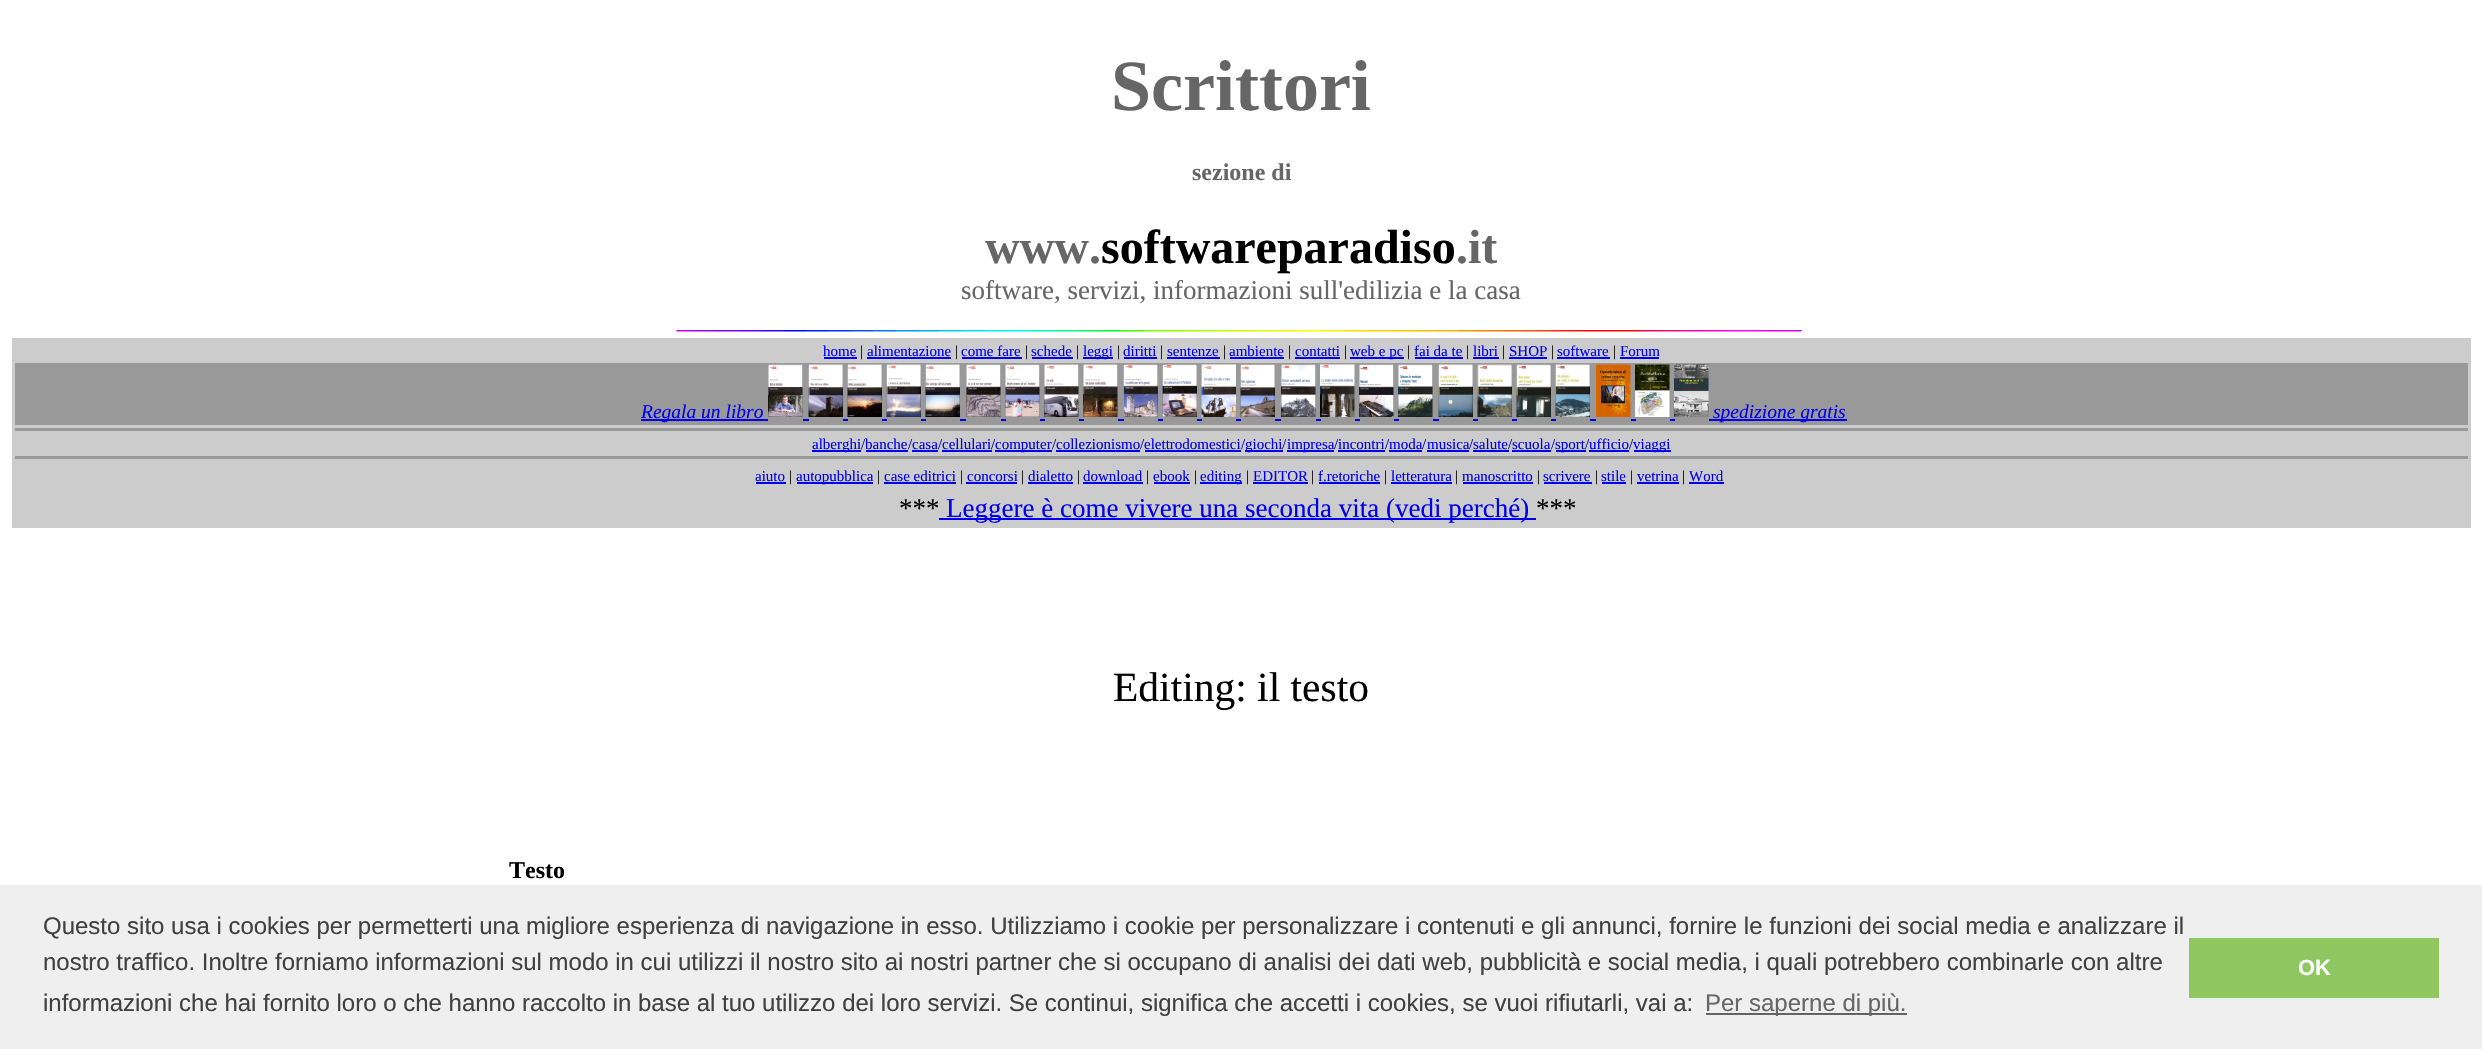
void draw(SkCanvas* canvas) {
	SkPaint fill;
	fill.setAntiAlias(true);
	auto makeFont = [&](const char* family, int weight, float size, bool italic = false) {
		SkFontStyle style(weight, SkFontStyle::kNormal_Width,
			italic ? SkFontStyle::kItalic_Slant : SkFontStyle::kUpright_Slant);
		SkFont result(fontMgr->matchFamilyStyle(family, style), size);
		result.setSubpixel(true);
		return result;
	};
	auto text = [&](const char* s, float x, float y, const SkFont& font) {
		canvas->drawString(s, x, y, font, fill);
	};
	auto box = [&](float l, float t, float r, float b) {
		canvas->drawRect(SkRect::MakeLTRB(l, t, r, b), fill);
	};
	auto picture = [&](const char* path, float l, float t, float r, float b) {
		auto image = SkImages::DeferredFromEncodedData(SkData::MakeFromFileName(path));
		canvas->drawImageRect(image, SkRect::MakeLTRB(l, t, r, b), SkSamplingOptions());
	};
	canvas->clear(0xFFFFFFFF);
	picture("image0.png", 676, 330, 1802, 332);
	fill.setColor(0xFFCCCCCC);
	box(12, 338, 2471, 528);
	fill.setColor(0xFF0000EE);
	box(824, 357, 857, 359);
	box(867, 357, 951, 359);
	box(962, 357, 1022, 359);
	box(1032, 357, 1073, 359);
	box(1083, 357, 1113, 359);
	box(1124, 357, 1157, 359);
	box(1167, 357, 1220, 359);
	box(1230, 357, 1284, 359);
	box(1295, 357, 1340, 359);
	box(1350, 357, 1404, 359);
	box(1415, 357, 1463, 359);
	box(1473, 357, 1499, 359);
	box(1509, 357, 1547, 359);
	box(1557, 357, 1610, 359);
	box(1620, 357, 1659, 359);
	fill.setColor(0xFF999999);
	box(15, 363, 2468, 425);
	fill.setColor(0xFF0000EE);
	box(641, 419, 768, 421);
	box(803, 419, 809, 421);
	box(843, 419, 848, 421);
	box(882, 419, 887, 421);
	box(921, 419, 926, 421);
	box(960, 419, 966, 421);
	box(1001, 419, 1006, 421);
	box(1040, 419, 1045, 421);
	box(1079, 419, 1084, 421);
	box(1118, 419, 1124, 421);
	box(1158, 419, 1163, 421);
	box(1197, 419, 1202, 421);
	picture("image1.png", 768, 364, 803, 417);
	picture("image2.png", 808, 364, 843, 417);
	picture("image3.png", 847, 364, 882, 417);
	picture("image4.png", 886, 364, 921, 417);
	picture("image5.png", 925, 364, 960, 417);
	picture("image6.png", 966, 364, 1001, 417);
	picture("image7.png", 1005, 364, 1040, 417);
	picture("image8.png", 1044, 364, 1079, 417);
	picture("image9.png", 1083, 364, 1118, 417);
	picture("image10.png", 1123, 364, 1158, 417);
	picture("image11.png", 1162, 364, 1197, 417);
	picture("image12.png", 1201, 364, 1236, 417);
	picture("image13.png", 1240, 364, 1275, 417);
	picture("image14.png", 1281, 364, 1316, 417);
	picture("image15.png", 1320, 364, 1355, 417);
	picture("image16.png", 1359, 364, 1394, 417);
	picture("image17.png", 1398, 364, 1433, 417);
	picture("image18.png", 1438, 364, 1473, 417);
	picture("image19.png", 1477, 364, 1512, 417);
	picture("image20.png", 1516, 364, 1551, 417);
	picture("image21.png", 1555, 364, 1590, 417);
	picture("image22.png", 1596, 364, 1631, 417);
	picture("image23.png", 1635, 364, 1670, 417);
	picture("image24.png", 1674, 364, 1709, 417);
	box(1236, 419, 1241, 421);
	box(1275, 419, 1281, 421);
	box(1316, 419, 1321, 421);
	box(1355, 419, 1360, 421);
	box(1394, 419, 1399, 421);
	box(1433, 419, 1439, 421);
	box(1473, 419, 1478, 421);
	box(1512, 419, 1517, 421);
	box(1551, 419, 1556, 421);
	box(1590, 419, 1596, 421);
	box(1631, 419, 1636, 421);
	box(1670, 419, 1675, 421);
	box(1709, 419, 1847, 421);
	fill.setColor(0xFF999999);
	box(15, 428, 2468, 431);
	fill.setColor(0xFF0000EE);
	box(812, 450, 861, 452);
	box(866, 450, 908, 452);
	box(912, 450, 938, 452);
	box(942, 450, 992, 452);
	box(995, 450, 1052, 452);
	box(1056, 450, 1140, 452);
	box(1145, 450, 1241, 452);
	box(1245, 450, 1283, 452);
	box(1287, 450, 1334, 452);
	box(1338, 450, 1385, 452);
	box(1389, 450, 1422, 452);
	box(1427, 450, 1469, 452);
	box(1473, 450, 1509, 452);
	box(1512, 450, 1551, 452);
	box(1556, 450, 1586, 452);
	box(1589, 450, 1629, 452);
	box(1634, 450, 1671, 452);
	fill.setColor(0xFF999999);
	box(15, 456, 2468, 459);
	fill.setColor(0xFF0000EE);
	box(756, 482, 786, 484);
	box(797, 482, 873, 484);
	box(884, 482, 956, 484);
	box(966, 482, 1017, 484);
	box(1028, 482, 1073, 484);
	box(1083, 482, 1143, 484);
	box(1154, 482, 1190, 484);
	box(1200, 482, 1242, 484);
	box(1253, 482, 1308, 484);
	box(1319, 482, 1380, 484);
	box(1391, 482, 1452, 484);
	box(1463, 482, 1533, 484);
	box(1544, 482, 1592, 484);
	box(1602, 482, 1626, 484);
	box(1637, 482, 1679, 484);
	box(1689, 482, 1724, 484);
	box(939, 518, 1536, 520);
	fill.setColor(0xFFEFEFEF);
	box(0, 885, 2482, 1049);
	fill.setColor(0xFF636363);
	box(1706, 1013, 1907, 1015);
	fill.setColor(0xFF8EC760);
	box(2189, 938, 2439, 998);
	auto font1 = makeFont("Liberation Serif", 700, 72);
	fill.setColor(0xFF666666);
	text("Scrittori", 1111, 110, font1);
	auto font2 = makeFont("Liberation Serif", 700, 24);
	text("sezione di", 1192, 180, font2);
	auto font3 = makeFont("Liberation Serif", 700, 48);
	text("www.", 985, 263, font3);
	fill.setColor(0xFF000000);
	text("softwareparadiso", 1101, 263, font3);
	fill.setColor(0xFF666666);
	text(".it", 1456, 263, font3);
	auto font4 = makeFont("Liberation Serif", 400, 27);
	text("software, servizi, informazioni sull'edilizia e la casa", 961, 299, font4);
	auto font5 = makeFont("Liberation Serif", 400, 15);
	fill.setColor(0xFF0000EE);
	text("home", 823, 356, font5);
	fill.setColor(0xFF000000);
	text("|", 860, 356, font5);
	fill.setColor(0xFF0000EE);
	text("alimentazione", 867, 356, font5);
	fill.setColor(0xFF000000);
	text("|", 955, 356, font5);
	fill.setColor(0xFF0000EE);
	text("come fare", 961, 356, font5);
	fill.setColor(0xFF000000);
	text("|", 1025, 356, font5);
	fill.setColor(0xFF0000EE);
	text("schede", 1031, 356, font5);
	fill.setColor(0xFF000000);
	text("|", 1076, 356, font5);
	fill.setColor(0xFF0000EE);
	text("leggi", 1083, 356, font5);
	fill.setColor(0xFF000000);
	text("|", 1117, 356, font5);
	fill.setColor(0xFF0000EE);
	text("diritti", 1123, 356, font5);
	fill.setColor(0xFF000000);
	text("|", 1160, 356, font5);
	fill.setColor(0xFF0000EE);
	text("sentenze", 1167, 356, font5);
	fill.setColor(0xFF000000);
	text("|", 1223, 356, font5);
	fill.setColor(0xFF0000EE);
	text("ambiente", 1229, 356, font5);
	fill.setColor(0xFF000000);
	text("|", 1288, 356, font5);
	fill.setColor(0xFF0000EE);
	text("contatti", 1295, 356, font5);
	fill.setColor(0xFF000000);
	text("|", 1344, 356, font5);
	fill.setColor(0xFF0000EE);
	text("web e pc", 1350, 356, font5);
	fill.setColor(0xFF000000);
	text("|", 1407, 356, font5);
	fill.setColor(0xFF0000EE);
	text("fai da te", 1414, 356, font5);
	fill.setColor(0xFF000000);
	text("|", 1466, 356, font5);
	fill.setColor(0xFF0000EE);
	text("libri", 1473, 356, font5);
	fill.setColor(0xFF000000);
	text("|", 1502, 356, font5);
	fill.setColor(0xFF0000EE);
	text("SHOP", 1509, 356, font5);
	fill.setColor(0xFF000000);
	text("|", 1551, 356, font5);
	fill.setColor(0xFF0000EE);
	text("software", 1557, 356, font5);
	fill.setColor(0xFF000000);
	text("|", 1613, 356, font5);
	fill.setColor(0xFF0000EE);
	text("Forum", 1620, 356, font5);
	auto font6 = makeFont("Liberation Serif", 400, 19.5f, true);
	text("Regala un libro", 641, 418, font6);
	text("spedizione gratis", 1713, 418, font6);
	text("alberghi", 812, 449, font5);
	fill.setColor(0xFF000099);
	text("/", 861, 449, font5);
	fill.setColor(0xFF0000EE);
	text("banche", 865, 449, font5);
	fill.setColor(0xFF000099);
	text("/", 908, 449, font5);
	fill.setColor(0xFF0000EE);
	text("casa", 912, 449, font5);
	fill.setColor(0xFF000099);
	text("/", 938, 449, font5);
	fill.setColor(0xFF0000EE);
	text("cellulari", 942, 449, font5);
	fill.setColor(0xFF000099);
	text("/", 991, 449, font5);
	fill.setColor(0xFF0000EE);
	text("computer", 995, 449, font5);
	fill.setColor(0xFF000099);
	text("/", 1052, 449, font5);
	fill.setColor(0xFF0000EE);
	text("collezionismo", 1056, 449, font5);
	fill.setColor(0xFF000099);
	text("/", 1140, 449, font5);
	fill.setColor(0xFF0000EE);
	text("elettrodomestici", 1144, 449, font5);
	fill.setColor(0xFF000099);
	text("/", 1241, 449, font5);
	fill.setColor(0xFF0000EE);
	text("giochi", 1245, 449, font5);
	fill.setColor(0xFF000099);
	text("/", 1282, 449, font5);
	fill.setColor(0xFF0000EE);
	text("impresa", 1287, 449, font5);
	fill.setColor(0xFF000099);
	text("/", 1334, 449, font5);
	fill.setColor(0xFF0000EE);
	text("incontri", 1338, 449, font5);
	fill.setColor(0xFF000099);
	text("/", 1385, 449, font5);
	fill.setColor(0xFF0000EE);
	text("moda", 1389, 449, font5);
	fill.setColor(0xFF000099);
	text("/", 1422, 449, font5);
	fill.setColor(0xFF0000EE);
	text("musica", 1427, 449, font5);
	fill.setColor(0xFF000099);
	text("/", 1469, 449, font5);
	fill.setColor(0xFF0000EE);
	text("salute", 1473, 449, font5);
	fill.setColor(0xFF000099);
	text("/", 1508, 449, font5);
	fill.setColor(0xFF0000EE);
	text("scuola", 1512, 449, font5);
	fill.setColor(0xFF000099);
	text("/", 1551, 449, font5);
	fill.setColor(0xFF0000EE);
	text("sport", 1555, 449, font5);
	fill.setColor(0xFF000099);
	text("/", 1585, 449, font5);
	fill.setColor(0xFF0000EE);
	text("ufficio", 1589, 449, font5);
	fill.setColor(0xFF000099);
	text("/", 1629, 449, font5);
	fill.setColor(0xFF0000EE);
	text("viaggi", 1633, 449, font5);
	text("aiuto", 755, 481, font5);
	fill.setColor(0xFF000000);
	text("|", 789, 481, font5);
	fill.setColor(0xFF0000EE);
	text("autopubblica", 796, 481, font5);
	fill.setColor(0xFF000000);
	text("|", 877, 481, font5);
	fill.setColor(0xFF0000EE);
	text("case editrici", 884, 481, font5);
	fill.setColor(0xFF000000);
	text("|", 960, 481, font5);
	fill.setColor(0xFF0000EE);
	text("concorsi", 967, 481, font5);
	fill.setColor(0xFF000000);
	text("|", 1021, 481, font5);
	fill.setColor(0xFF0000EE);
	text("dialetto", 1028, 481, font5);
	fill.setColor(0xFF000000);
	text("|", 1077, 481, font5);
	fill.setColor(0xFF0000EE);
	text("download", 1083, 481, font5);
	fill.setColor(0xFF000000);
	text("|", 1146, 481, font5);
	fill.setColor(0xFF0000EE);
	text("ebook", 1153, 481, font5);
	fill.setColor(0xFF000000);
	text("|", 1194, 481, font5);
	fill.setColor(0xFF0000EE);
	text("editing", 1200, 481, font5);
	fill.setColor(0xFF000000);
	text("|", 1246, 481, font5);
	fill.setColor(0xFF0000EE);
	text("EDITOR", 1253, 481, font5);
	fill.setColor(0xFF000000);
	text("|", 1311, 481, font5);
	fill.setColor(0xFF0000EE);
	text("f.retoriche", 1318, 481, font5);
	fill.setColor(0xFF000000);
	text("|", 1384, 481, font5);
	fill.setColor(0xFF0000EE);
	text("letteratura", 1391, 481, font5);
	fill.setColor(0xFF000000);
	text("|", 1455, 481, font5);
	fill.setColor(0xFF0000EE);
	text("manoscritto", 1462, 481, font5);
	fill.setColor(0xFF000000);
	text("|", 1537, 481, font5);
	fill.setColor(0xFF0000EE);
	text("scrivere", 1543, 481, font5);
	fill.setColor(0xFF000000);
	text("|", 1595, 481, font5);
	fill.setColor(0xFF0000EE);
	text("stile", 1601, 481, font5);
	fill.setColor(0xFF000000);
	text("|", 1630, 481, font5);
	fill.setColor(0xFF0000EE);
	text("vetrina", 1637, 481, font5);
	fill.setColor(0xFF000000);
	text("|", 1682, 481, font5);
	fill.setColor(0xFF0000EE);
	text("Word", 1689, 481, font5);
	fill.setColor(0xFF000000);
	text("***", 899, 517, font4);
	fill.setColor(0xFF0000EE);
	text("Leggere è come vivere una seconda vita (vedi perché)", 946, 517, font4);
	fill.setColor(0xFF000000);
	text("***", 1536, 517, font4);
	auto font7 = makeFont("Liberation Serif", 400, 41.5f);
	text("Editing: il testo", 1113, 701, font7);
	text("Testo", 509, 878, font2);
	auto font8 = makeFont("Liberation Sans", 400, 24);
	fill.setColor(0xFF404040);
	text("Questo sito usa i cookies per permetterti una migliore esperienza di navigazione in esso. Utilizziamo i cookie per personalizzare i contenuti e gli annunci, fornire le funzioni dei social media e analizzare il", 43, 934, font8);
	text("nostro traffico. Inoltre forniamo informazioni sul modo in cui utilizzi il nostro sito ai nostri partner che si occupano di analisi dei dati web, pubblicità e social media, i quali potrebbero combinarle con altre", 43, 970, font8);
	text("informazioni che hai fornito loro o che hanno raccolto in base al tuo utilizzo dei loro servizi. Se continui, significa che accetti i cookies, se vuoi rifiutarli, vai a:", 43, 1011, font8);
	fill.setColor(0xFF666666);
	text("Per saperne di più.", 1705, 1011, font8);
	auto font9 = makeFont("Liberation Sans", 700, 22);
	fill.setColor(0xFFFFFFFF);
	text("OK", 2298, 975, font9);
}
